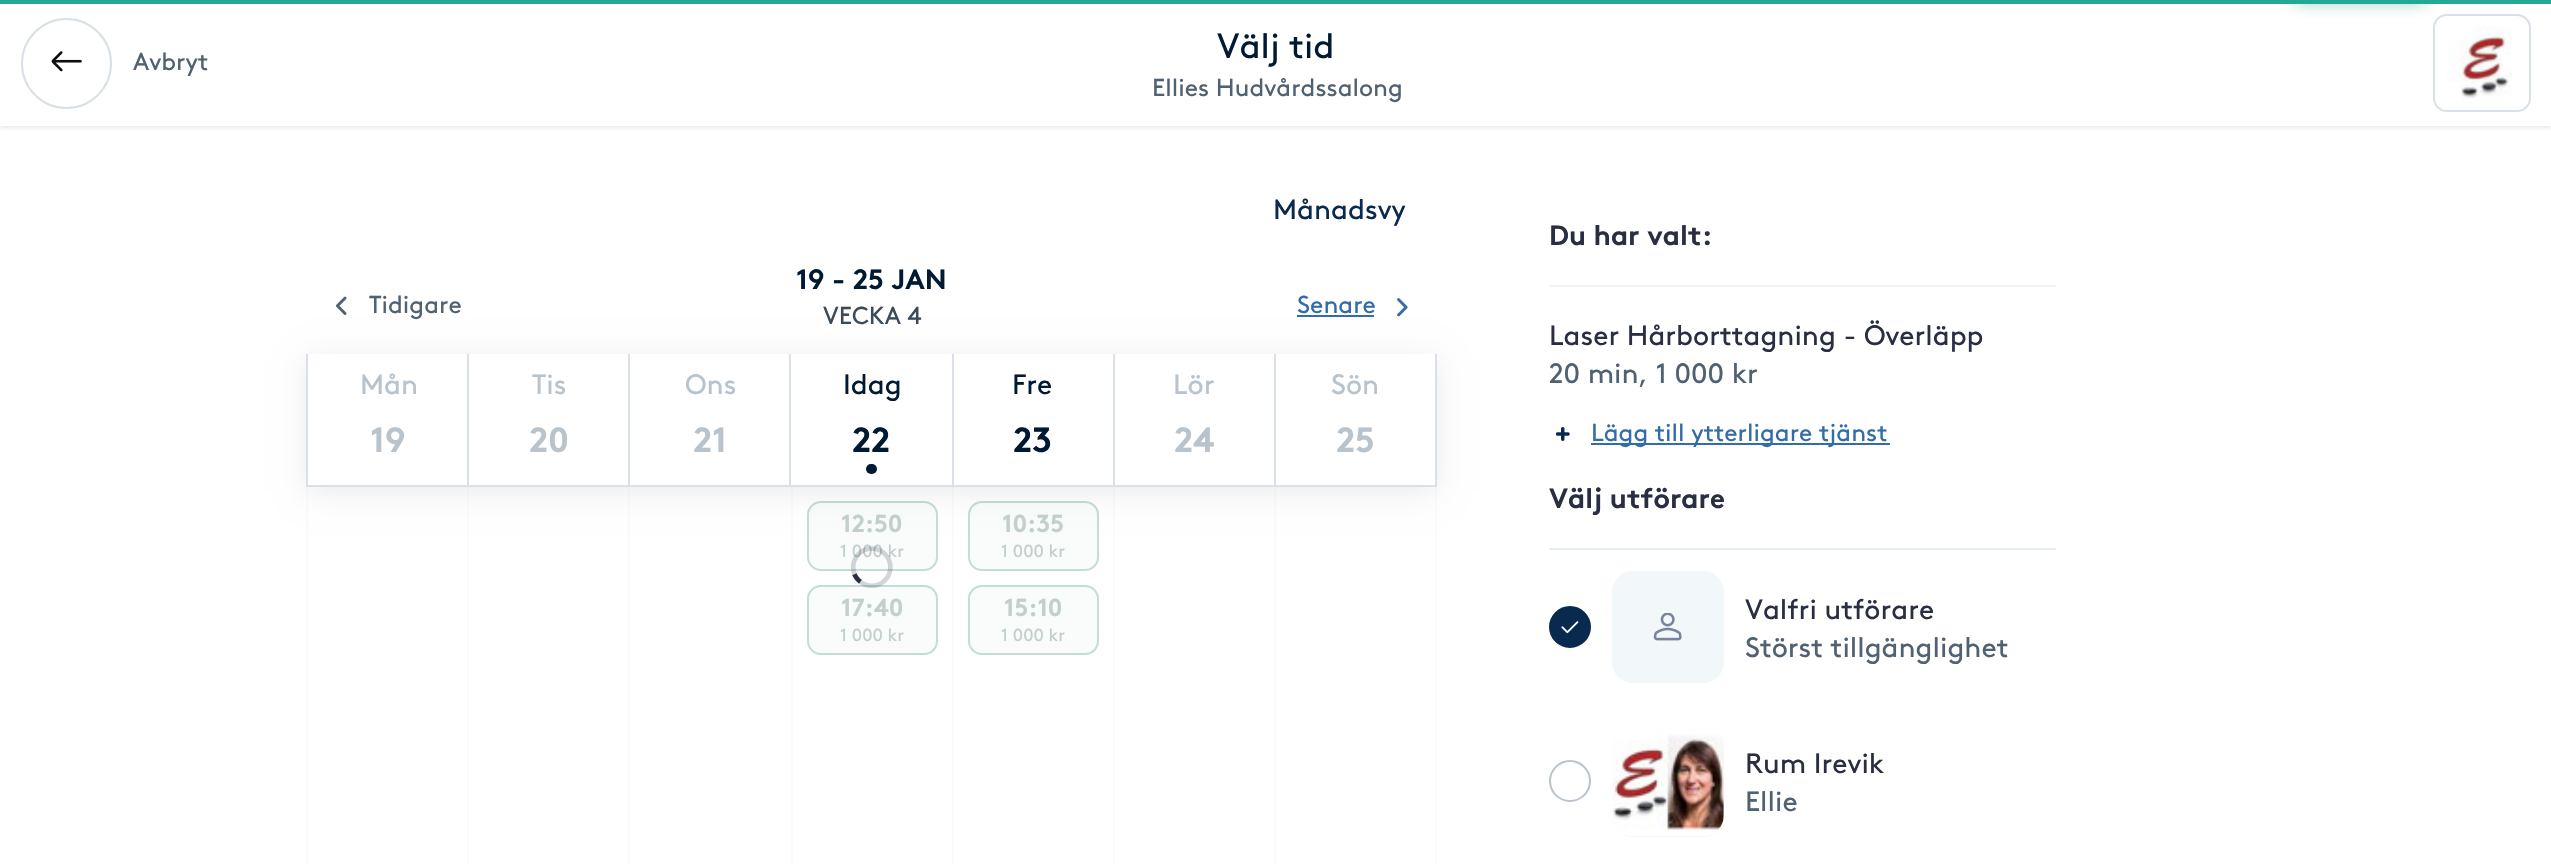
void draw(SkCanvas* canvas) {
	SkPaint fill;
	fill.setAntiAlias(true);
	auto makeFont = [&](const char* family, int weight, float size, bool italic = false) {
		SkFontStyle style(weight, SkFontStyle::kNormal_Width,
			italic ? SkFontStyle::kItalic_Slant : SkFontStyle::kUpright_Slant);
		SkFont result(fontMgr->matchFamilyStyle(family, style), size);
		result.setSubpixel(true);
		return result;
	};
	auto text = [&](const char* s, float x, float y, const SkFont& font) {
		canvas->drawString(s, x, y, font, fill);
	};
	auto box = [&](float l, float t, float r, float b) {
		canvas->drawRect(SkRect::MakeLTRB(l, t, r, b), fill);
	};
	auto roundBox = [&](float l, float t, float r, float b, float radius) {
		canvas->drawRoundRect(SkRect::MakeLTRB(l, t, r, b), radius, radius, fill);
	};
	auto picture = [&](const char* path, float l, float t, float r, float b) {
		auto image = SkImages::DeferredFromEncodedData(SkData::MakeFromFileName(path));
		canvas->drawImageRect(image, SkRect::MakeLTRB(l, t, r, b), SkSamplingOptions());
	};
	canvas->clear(0xFFFFFFFF);
	canvas->save();
	canvas->clipRect(SkRect::MakeLTRB(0, 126, 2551, 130));
	fill.setColor(0x1A001A33);
	fill.setMaskFilter(SkMaskFilter::MakeBlur(kNormal_SkBlurStyle, 2.5f));
	canvas->drawRect(SkRect::MakeLTRB(0, 2, 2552, 128), fill);
	fill.setMaskFilter(nullptr);
	canvas->restore();
	fill.setColor(0xFF23A994);
	box(0, 0, 2551, 4);
	fill.setStyle(SkPaint::kStroke_Style);
	fill.setStrokeWidth(2);
	fill.setColor(0xFFD9E0E7);
	canvas->drawRoundRect(SkRect::MakeLTRB(2434, 15, 2530, 111), 13, 13, fill);
	fill.setStyle(SkPaint::kFill_Style);
	fill.setColor(0xFF23A994);
	fill.setMaskFilter(SkMaskFilter::MakeBlur(kNormal_SkBlurStyle, 9));
	canvas->drawRect(SkRect::MakeLTRB(2296, -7, 2424, -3), fill);
	fill.setMaskFilter(nullptr);
	fill.setMaskFilter(SkMaskFilter::MakeBlur(kNormal_SkBlurStyle, 9));
	canvas->drawRect(SkRect::MakeLTRB(2296, -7, 2424, -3), fill);
	fill.setMaskFilter(nullptr);
	fill.setStyle(SkPaint::kStroke_Style);
	fill.setColor(0xFFD9E0E7);
	canvas->drawCircle(66.5f, 63.5f, 44.5f, fill);
	picture("image0.png", 51, 51, 82, 72);
	picture("image1.png", 2447, 26, 2512, 99);
	fill.setStyle(SkPaint::kFill_Style);
	fill.setColor(0xFFF9FBFC);
	box(306, 487, 308, 864);
	box(467, 487, 469, 864);
	box(628, 487, 630, 864);
	box(791, 487, 793, 864);
	fill.setColor(0xFFF9FCFB);
	canvas->drawRoundRect(SkRect::MakeLTRB(808, 502, 937, 570), 13, 13, fill);
	fill.setStyle(SkPaint::kStroke_Style);
	fill.setColor(0xFFC5DCD7);
	canvas->drawRoundRect(SkRect::MakeLTRB(808, 502, 937, 570), 13, 13, fill);
	fill.setStyle(SkPaint::kFill_Style);
	fill.setColor(0xFFF9FBFC);
	box(952, 487, 954, 864);
	fill.setColor(0xFFF9FCFB);
	canvas->drawRoundRect(SkRect::MakeLTRB(969, 502, 1098, 570), 13, 13, fill);
	fill.setStyle(SkPaint::kStroke_Style);
	fill.setColor(0xFFC5DCD7);
	canvas->drawRoundRect(SkRect::MakeLTRB(969, 502, 1098, 570), 13, 13, fill);
	fill.setStyle(SkPaint::kFill_Style);
	fill.setColor(0xFFF9FBFC);
	box(1113, 487, 1115, 864);
	box(1435, 487, 1437, 864);
	box(1274, 487, 1276, 864);
	fill.setColor(0x14000000);
	fill.setMaskFilter(SkMaskFilter::MakeBlur(kNormal_SkBlurStyle, 14));
	canvas->drawRect(SkRect::MakeLTRB(306, 359, 1437, 492), fill);
	fill.setMaskFilter(nullptr);
	fill.setColor(0xFFFFFFFF);
	box(308, 354, 1435, 485);
	picture("image2.png", 336, 296, 347, 315);
	fill.setColor(0xFF336CA8);
	box(1297, 315, 1374, 317);
	picture("image3.png", 1397, 298, 1408, 317);
	fill.setColor(0xFFD9E0E7);
	box(306, 485, 1274, 487);
	box(306, 354, 308, 487);
	box(467, 354, 469, 487);
	box(628, 354, 630, 487);
	box(789, 354, 791, 487);
	fill.setColor(0xFF001A33);
	roundBox(866, 464, 877, 474, 5);
	fill.setColor(0xFFD9E0E7);
	box(952, 354, 954, 487);
	box(1113, 354, 1115, 487);
	box(1435, 354, 1437, 487);
	box(1274, 485, 1437, 487);
	box(1274, 354, 1276, 487);
	fill.setColor(0xFFF9FCFB);
	canvas->drawRoundRect(SkRect::MakeLTRB(808, 586, 937, 654), 13, 13, fill);
	fill.setStyle(SkPaint::kStroke_Style);
	fill.setColor(0xFFC5DCD7);
	canvas->drawRoundRect(SkRect::MakeLTRB(808, 586, 937, 654), 13, 13, fill);
	fill.setStyle(SkPaint::kFill_Style);
	fill.setColor(0xFFF9FCFB);
	canvas->drawRoundRect(SkRect::MakeLTRB(969, 586, 1098, 654), 13, 13, fill);
	fill.setStyle(SkPaint::kStroke_Style);
	fill.setColor(0xFFC5DCD7);
	canvas->drawRoundRect(SkRect::MakeLTRB(969, 586, 1098, 654), 13, 13, fill);
	fill.setStyle(SkPaint::kFill_Style);
	fill.setColor(0xFFF4F4F6);
	box(1549, 285, 2056, 287);
	picture("image5.png", 1556, 427, 1570, 441);
	fill.setColor(0xFF336CA8);
	box(1591, 443, 1890, 445);
	fill.setColor(0xFFE6EDF2);
	box(1549, 548, 2056, 550);
	fill.setColor(0xFF092A4E);
	canvas->drawCircle(1570, 627, 20, fill);
	fill.setStyle(SkPaint::kStroke_Style);
	canvas->drawCircle(1570, 627, 20, fill);
	picture("image6.png", 1561, 621, 1579, 634);
	fill.setStyle(SkPaint::kFill_Style);
	fill.setColor(0xFFF2F7FA);
	roundBox(1612, 571, 1724, 683, 21);
	picture("image7.png", 1653, 613, 1682, 641);
	fill.setStyle(SkPaint::kStroke_Style);
	fill.setColor(0xFFB8C3CC);
	canvas->drawCircle(1570, 781, 20, fill);
	fill.setStyle(SkPaint::kFill_Style);
	fill.setColor(0xFFF2F7FA);
	roundBox(1612, 725, 1724, 837, 21);
	picture("image8.png", 1612, 725, 1724, 836);
	auto font1 = makeFont("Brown", 400, 24.5f);
	fill.setColor(0xFF506172);
	text("Avbryt", 133, 70, font1);
	auto font2 = makeFont("Brown", 400, 35);
	fill.setColor(0xFF001A33);
	text("Välj tid", 1217, 58, font2);
	fill.setColor(0xFF506172);
	text("Ellies Hudvårdssalong", 1152, 96, font1);
	auto font3 = makeFont("Brown", 400, 28);
	fill.setColor(0xFF092A4E);
	text("Månadsvy", 1273, 219, font3);
	auto font4 = makeFont("Brown", 700, 28);
	fill.setColor(0xFF001A33);
	text("19 - 25 JAN", 796, 289, font4);
	fill.setColor(0xFF3B4A58);
	text("VECKA 4", 823, 324, font1);
	fill.setColor(0xFF506172);
	text("Tidigare", 369, 313, font1);
	fill.setColor(0xFF336CA8);
	text("Senare", 1297, 313, font1);
	fill.setColor(0xFFB8C3CC);
	text("Mån", 360, 394, font3);
	auto font5 = makeFont("Brown", 700, 35);
	text("19", 370, 452, font5);
	text("Tis", 532, 394, font3);
	text("20", 529, 452, font5);
	text("Ons", 685, 394, font3);
	text("21", 693, 452, font5);
	fill.setColor(0xFF001A33);
	text("Idag", 843, 394, font3);
	text("22", 852, 452, font5);
	text("Fre", 1012, 394, font3);
	text("23", 1013, 452, font5);
	fill.setColor(0xFFB8C3CC);
	text("Lör", 1173, 394, font3);
	text("24", 1174, 452, font5);
	text("Sön", 1331, 394, font3);
	text("25", 1336, 452, font5);
	auto font6 = makeFont("Brown", 700, 24.5f);
	fill.setColor(0xFFC3CFCD);
	text("12:50", 841, 532, font6);
	auto font7 = makeFont("Brown", 400, 17.5f);
	text("1 000 kr", 840, 557, font7);
	text("17:40", 841, 616, font6);
	text("1 000 kr", 840, 641, font7);
	text("10:35", 1002, 532, font6);
	text("1 000 kr", 1001, 557, font7);
	text("15:10", 1004, 616, font6);
	text("1 000 kr", 1001, 641, font7);
	picture("image4.png", 850, 546, 893, 588);
	fill.setColor(0xFF2A2E43);
	text("Du har valt:", 1549, 245, font4);
	text("Laser Hårborttagning - Överläpp", 1549, 345, font3);
	fill.setColor(0xFF506172);
	text("20 min, 1 000 kr", 1549, 383, font3);
	fill.setColor(0xFF336CA8);
	text("Lägg till ytterligare tjänst", 1591, 441, font1);
	fill.setColor(0xFF2A2E43);
	text("Välj utförare", 1549, 508, font4);
	text("Valfri utförare", 1745, 619, font3);
	fill.setColor(0xFF506172);
	text("Störst tillgänglighet", 1745, 657, font3);
	fill.setColor(0xFF2A2E43);
	text("Rum Irevik", 1745, 773, font3);
	fill.setColor(0xFF506172);
	text("Ellie", 1745, 811, font3);
}
